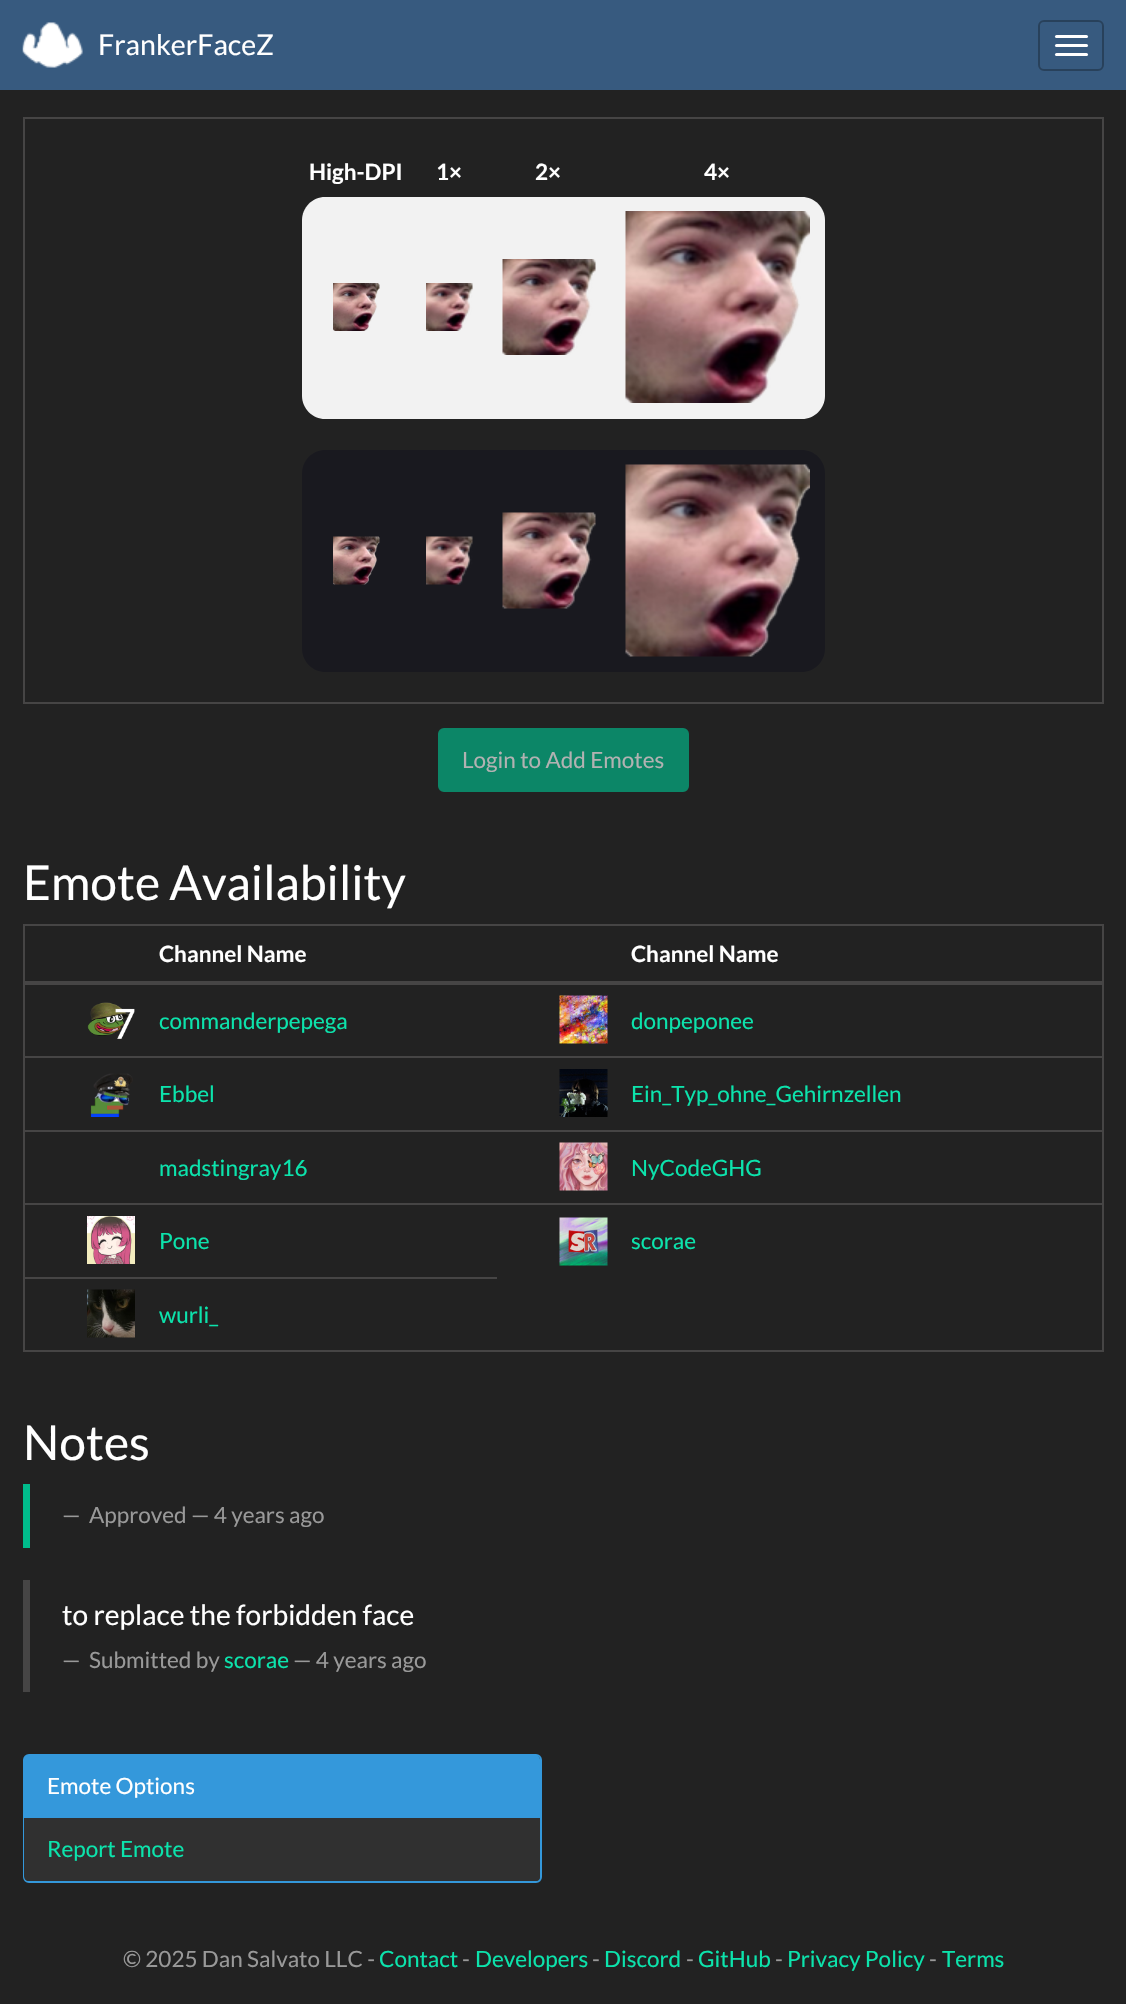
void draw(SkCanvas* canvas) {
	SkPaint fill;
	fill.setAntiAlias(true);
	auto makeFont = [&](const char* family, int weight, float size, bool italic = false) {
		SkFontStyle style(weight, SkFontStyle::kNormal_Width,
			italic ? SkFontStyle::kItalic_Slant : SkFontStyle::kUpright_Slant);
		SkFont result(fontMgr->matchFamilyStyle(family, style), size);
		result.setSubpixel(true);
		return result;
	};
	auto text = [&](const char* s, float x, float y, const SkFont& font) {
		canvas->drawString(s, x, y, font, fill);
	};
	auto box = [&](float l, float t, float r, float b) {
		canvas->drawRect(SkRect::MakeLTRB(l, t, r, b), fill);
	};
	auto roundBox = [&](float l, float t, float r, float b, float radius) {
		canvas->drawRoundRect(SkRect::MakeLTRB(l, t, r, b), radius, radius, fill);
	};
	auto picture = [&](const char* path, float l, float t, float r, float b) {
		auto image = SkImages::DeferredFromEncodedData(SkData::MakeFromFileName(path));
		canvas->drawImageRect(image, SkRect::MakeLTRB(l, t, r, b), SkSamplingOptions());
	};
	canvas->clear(0xFF222222);
	fill.setColor(0xFF375A7F);
	box(0, 0, 1126, 90);
	picture("image0.png", 22, 22, 83, 68);
	fill.setStyle(SkPaint::kStroke_Style);
	fill.setStrokeWidth(2);
	fill.setColor(0xFF28415B);
	canvas->drawRoundRect(SkRect::MakeLTRB(1039, 21, 1103, 70), 5, 5, fill);
	fill.setStyle(SkPaint::kFill_Style);
	fill.setColor(0xFFFFFFFF);
	roundBox(1055, 35, 1088, 38, 1.5f);
	roundBox(1055, 44, 1088, 47, 1.5f);
	roundBox(1055, 53, 1088, 56, 1.5f);
	fill.setStyle(SkPaint::kStroke_Style);
	fill.setColor(0xFF464545);
	canvas->drawRect(SkRect::MakeLTRB(24, 118, 1103, 703), fill);
	fill.setStyle(SkPaint::kFill_Style);
	fill.setColor(0xFFF2F2F2);
	canvas->drawPath(SkPathBuilder().moveTo(325, 197).lineTo(411, 197).lineTo(411, 419).lineTo(325, 419).cubicTo(312.5f, 419, 302, 408.5f, 302, 396).lineTo(302, 220).cubicTo(302, 207.5f, 312.5f, 197, 325, 197).close().detach(), fill);
	picture("image1.png", 333, 283, 380, 331);
	box(411, 197, 611, 419);
	picture("image2.png", 426, 283, 473, 331);
	canvas->drawPath(SkPathBuilder().moveTo(611, 197).lineTo(802, 197).cubicTo(814.5f, 197, 825, 207.5f, 825, 220).lineTo(825, 396).cubicTo(825, 408.5f, 814.5f, 419, 802, 419).lineTo(611, 419).close().detach(), fill);
	picture("image3.png", 625, 211, 810, 403);
	picture("image4.png", 502, 259, 596, 355);
	fill.setColor(0xFF19191F);
	canvas->drawPath(SkPathBuilder().moveTo(325, 450).lineTo(411, 450).lineTo(411, 672).lineTo(325, 672).cubicTo(312.5f, 672, 302, 661.5f, 302, 649).lineTo(302, 473).cubicTo(302, 460.5f, 312.5f, 450, 325, 450).close().detach(), fill);
	picture("image5.png", 333, 536, 380, 585);
	box(411, 450, 611, 672);
	picture("image6.png", 426, 536, 473, 585);
	canvas->drawPath(SkPathBuilder().moveTo(611, 450).lineTo(802, 450).cubicTo(814.5f, 450, 825, 460.5f, 825, 473).lineTo(825, 649).cubicTo(825, 661.5f, 814.5f, 672, 802, 672).lineTo(611, 672).close().detach(), fill);
	picture("image7.png", 625, 464, 810, 657);
	picture("image8.png", 502, 512, 596, 609);
	fill.setColor(0xFF0C8667);
	canvas->drawRoundRect(SkRect::MakeLTRB(439, 729, 688, 791), 5, 5, fill);
	fill.setStyle(SkPaint::kStroke_Style);
	canvas->drawRoundRect(SkRect::MakeLTRB(439, 729, 688, 791), 5, 5, fill);
	fill.setColor(0xFF464545);
	canvas->drawRect(SkRect::MakeLTRB(24, 925, 1103, 1351), fill);
	fill.setStyle(SkPaint::kFill_Style);
	box(24, 981, 1103, 984);
	picture("image9.png", 87, 1002, 135, 1039);
	picture("image10.png", 559, 995, 608, 1044);
	box(24, 984, 1103, 985);
	picture("image11.png", 90, 1073, 133, 1117);
	picture("image12.png", 559, 1069, 608, 1117);
	box(24, 1056, 1103, 1058);
	picture("image13.png", 559, 1142, 608, 1191);
	box(24, 1130, 1103, 1132);
	picture("image14.png", 87, 1216, 135, 1264);
	picture("image15.png", 559, 1217, 608, 1266);
	box(24, 1203, 1103, 1205);
	picture("image16.png", 87, 1289, 135, 1338);
	box(24, 1277, 497, 1279);
	fill.setColor(0xFF00BC8C);
	box(23, 1484, 30, 1548);
	fill.setColor(0xFF464545);
	box(23, 1580, 30, 1692);
	fill.setColor(0xFF303030);
	canvas->drawRoundRect(SkRect::MakeLTRB(24, 1755, 541, 1882), 5, 5, fill);
	fill.setStyle(SkPaint::kStroke_Style);
	fill.setColor(0xFF3498DB);
	canvas->drawRoundRect(SkRect::MakeLTRB(24, 1755, 541, 1882), 5, 5, fill);
	fill.setStyle(SkPaint::kFill_Style);
	canvas->drawPath(SkPathBuilder().moveTo(29, 1755).lineTo(535, 1755).cubicTo(538, 1755, 540, 1757, 540, 1760).lineTo(540, 1818).lineTo(24, 1818).lineTo(24, 1760).cubicTo(24, 1757, 26, 1755, 29, 1755).close().detach(), fill);
	fill.setColor(0xFF303030);
	canvas->drawPath(SkPathBuilder().moveTo(24, 1818).lineTo(540, 1818).lineTo(540, 1876).cubicTo(540, 1879, 538, 1881, 535, 1881).lineTo(29, 1881).cubicTo(26, 1881, 24, 1879, 24, 1876).close().detach(), fill);
	auto font1 = makeFont("Lato", 400, 28.5f);
	fill.setColor(0xFFFFFFFF);
	text("FrankerFaceZ", 98, 55, font1);
	auto font2 = makeFont("Lato", 700, 22.5f);
	text("High-DPI", 309, 180, font2);
	text("1×", 436, 180, font2);
	text("2×", 535, 180, font2);
	text("4×", 704, 180, font2);
	auto font3 = makeFont("Lato", 400, 22.5f);
	fill.setColor(0xFFB2B2B2);
	text("Login to Add Emotes", 462, 768, font3);
	auto font4 = makeFont("Lato", 400, 48);
	fill.setColor(0xFFFFFFFF);
	text("Emote Availability", 23, 900, font4);
	text("Channel Name", 159, 962, font2);
	text("Channel Name", 631, 962, font2);
	fill.setColor(0xFF0CE3AC);
	text("commanderpepega", 159, 1029, font3);
	text("donpeponee", 631, 1029, font3);
	text("Ebbel", 159, 1102, font3);
	text("Ein_Typ_ohne_Gehirnzellen", 631, 1102, font3);
	text("madstingray16", 159, 1176, font3);
	text("NyCodeGHG", 631, 1176, font3);
	text("Pone", 159, 1249, font3);
	text("scorae", 631, 1249, font3);
	text("wurli_", 159, 1323, font3);
	fill.setColor(0xFFFFFFFF);
	text("Notes", 23, 1460, font4);
	fill.setColor(0xFF999999);
	text("—", 62, 1523, font3);
	text("Approved — 4 years ago", 89, 1523, font3);
	auto font5 = makeFont("Lato", 400, 28.1f);
	fill.setColor(0xFFFFFFFF);
	text("to replace the forbidden face", 62, 1625, font5);
	fill.setColor(0xFF999999);
	text("—", 62, 1668, font3);
	text("Submitted by", 89, 1668, font3);
	fill.setColor(0xFF0CE3AC);
	text("scorae", 224, 1668, font3);
	fill.setColor(0xFF999999);
	text("— 4 years ago", 293, 1668, font3);
	fill.setColor(0xFFFFFFFF);
	text("Emote Options", 47, 1794, font3);
	fill.setColor(0xFF0CE3AC);
	text("Report Emote", 47, 1857, font3);
	fill.setColor(0xFF999999);
	text("© 2025 Dan Salvato LLC -", 123, 1967, font3);
	fill.setColor(0xFF0CE3AC);
	text("Contact", 379, 1967, font3);
	fill.setColor(0xFF999999);
	text("-", 462, 1967, font3);
	fill.setColor(0xFF0CE3AC);
	text("Developers", 475, 1967, font3);
	fill.setColor(0xFF999999);
	text("-", 592, 1967, font3);
	fill.setColor(0xFF0CE3AC);
	text("Discord", 604, 1967, font3);
	fill.setColor(0xFF999999);
	text("-", 686, 1967, font3);
	fill.setColor(0xFF0CE3AC);
	text("GitHub", 698, 1967, font3);
	fill.setColor(0xFF999999);
	text("-", 775, 1967, font3);
	fill.setColor(0xFF0CE3AC);
	text("Privacy Policy", 787, 1967, font3);
	fill.setColor(0xFF999999);
	text("-", 929, 1967, font3);
	fill.setColor(0xFF0CE3AC);
	text("Terms", 942, 1967, font3);
}
